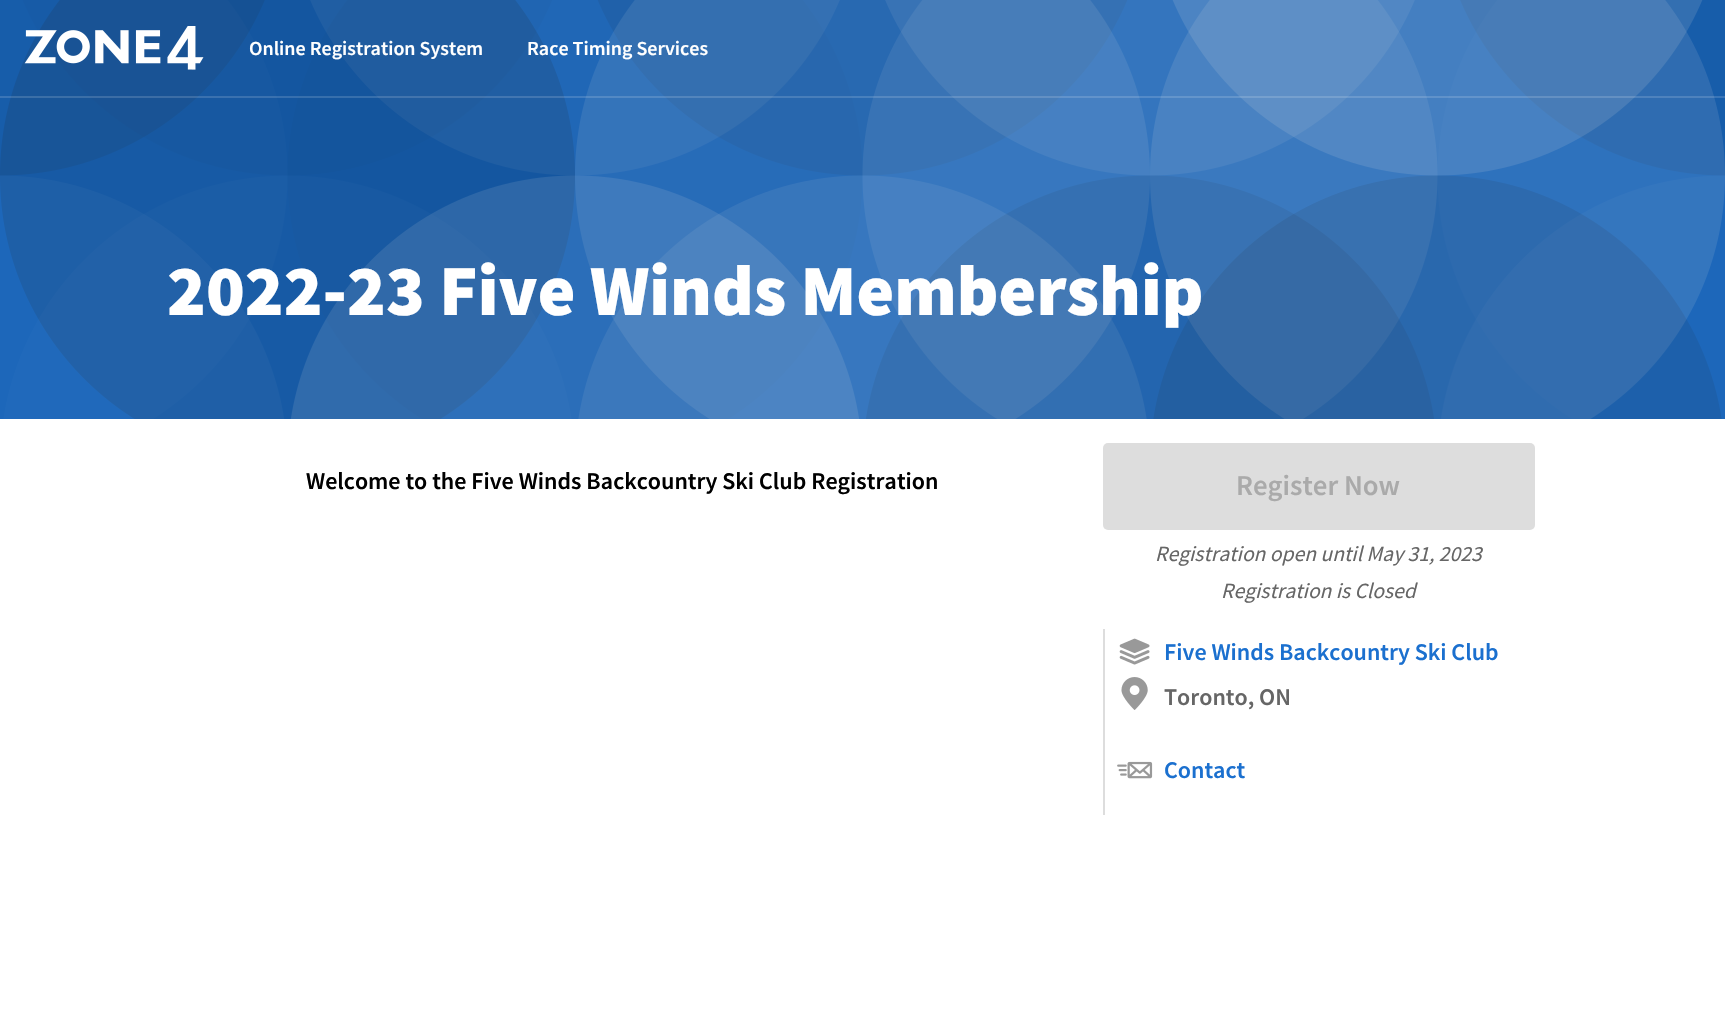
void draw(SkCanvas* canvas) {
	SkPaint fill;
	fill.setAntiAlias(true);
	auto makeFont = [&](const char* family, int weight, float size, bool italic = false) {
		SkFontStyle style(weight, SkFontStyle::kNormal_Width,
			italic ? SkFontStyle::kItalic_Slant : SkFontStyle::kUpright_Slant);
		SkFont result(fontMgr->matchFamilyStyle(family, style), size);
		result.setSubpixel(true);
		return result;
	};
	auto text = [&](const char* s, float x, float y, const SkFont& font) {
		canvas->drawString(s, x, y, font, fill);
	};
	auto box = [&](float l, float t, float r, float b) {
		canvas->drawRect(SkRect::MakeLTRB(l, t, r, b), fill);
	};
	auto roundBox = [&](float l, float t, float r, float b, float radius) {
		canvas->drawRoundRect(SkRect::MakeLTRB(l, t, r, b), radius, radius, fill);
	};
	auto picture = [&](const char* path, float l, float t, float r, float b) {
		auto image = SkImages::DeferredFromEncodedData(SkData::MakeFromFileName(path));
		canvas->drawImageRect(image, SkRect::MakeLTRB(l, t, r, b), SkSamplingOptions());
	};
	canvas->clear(0xFFFFFFFF);
	picture("image1.png", 0, 0, 1725, 419);
	fill.setColor(0x26FFFFFF);
	box(0, 96, 1725, 98);
	picture("image0.png", 24, 26, 204, 70);
	fill.setColor(0xFFDDDDDD);
	roundBox(1103, 443, 1535, 530, 5);
	box(1103, 629, 1105, 815);
	picture("image2.png", 1119, 638, 1150, 665);
	picture("image3.png", 1121, 677, 1148, 710);
	picture("image4.png", 1117, 761, 1153, 779);
	auto font1 = makeFont("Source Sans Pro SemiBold", 600, 20);
	fill.setColor(0xFFFFFFFF);
	text("Online Registration System", 249, 55, font1);
	text("Race Timing Services", 527, 55, font1);
	auto font2 = makeFont("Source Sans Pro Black", 900, 72);
	text("2022-23 Five Winds Membership", 167, 315, font2);
	auto font3 = makeFont("Source Sans Pro", 600, 24);
	fill.setColor(0xFF000000);
	text("Welcome to the Five Winds Backcountry Ski Club Registration", 306, 489, font3);
	auto font4 = makeFont("Source Sans Pro SemiBold", 600, 28.75f);
	fill.setColor(0xFFAAAAAA);
	text("Register Now", 1236, 495, font4);
	auto font5 = makeFont("Source Sans Pro", 400, 21.6f, true);
	fill.setColor(0xFF666666);
	text("Registration open until May 31, 2023", 1155, 561, font5);
	text("Registration is Closed", 1221, 598, font5);
	auto font6 = makeFont("Source Sans Pro SemiBold", 600, 24);
	fill.setColor(0xFF1B70CF);
	text("Five Winds Backcountry Ski Club", 1164, 660, font6);
	fill.setColor(0xFF666666);
	text("Toronto, ON", 1164, 705, font6);
	fill.setColor(0xFF1B70CF);
	text("Contact", 1164, 778, font6);
}
